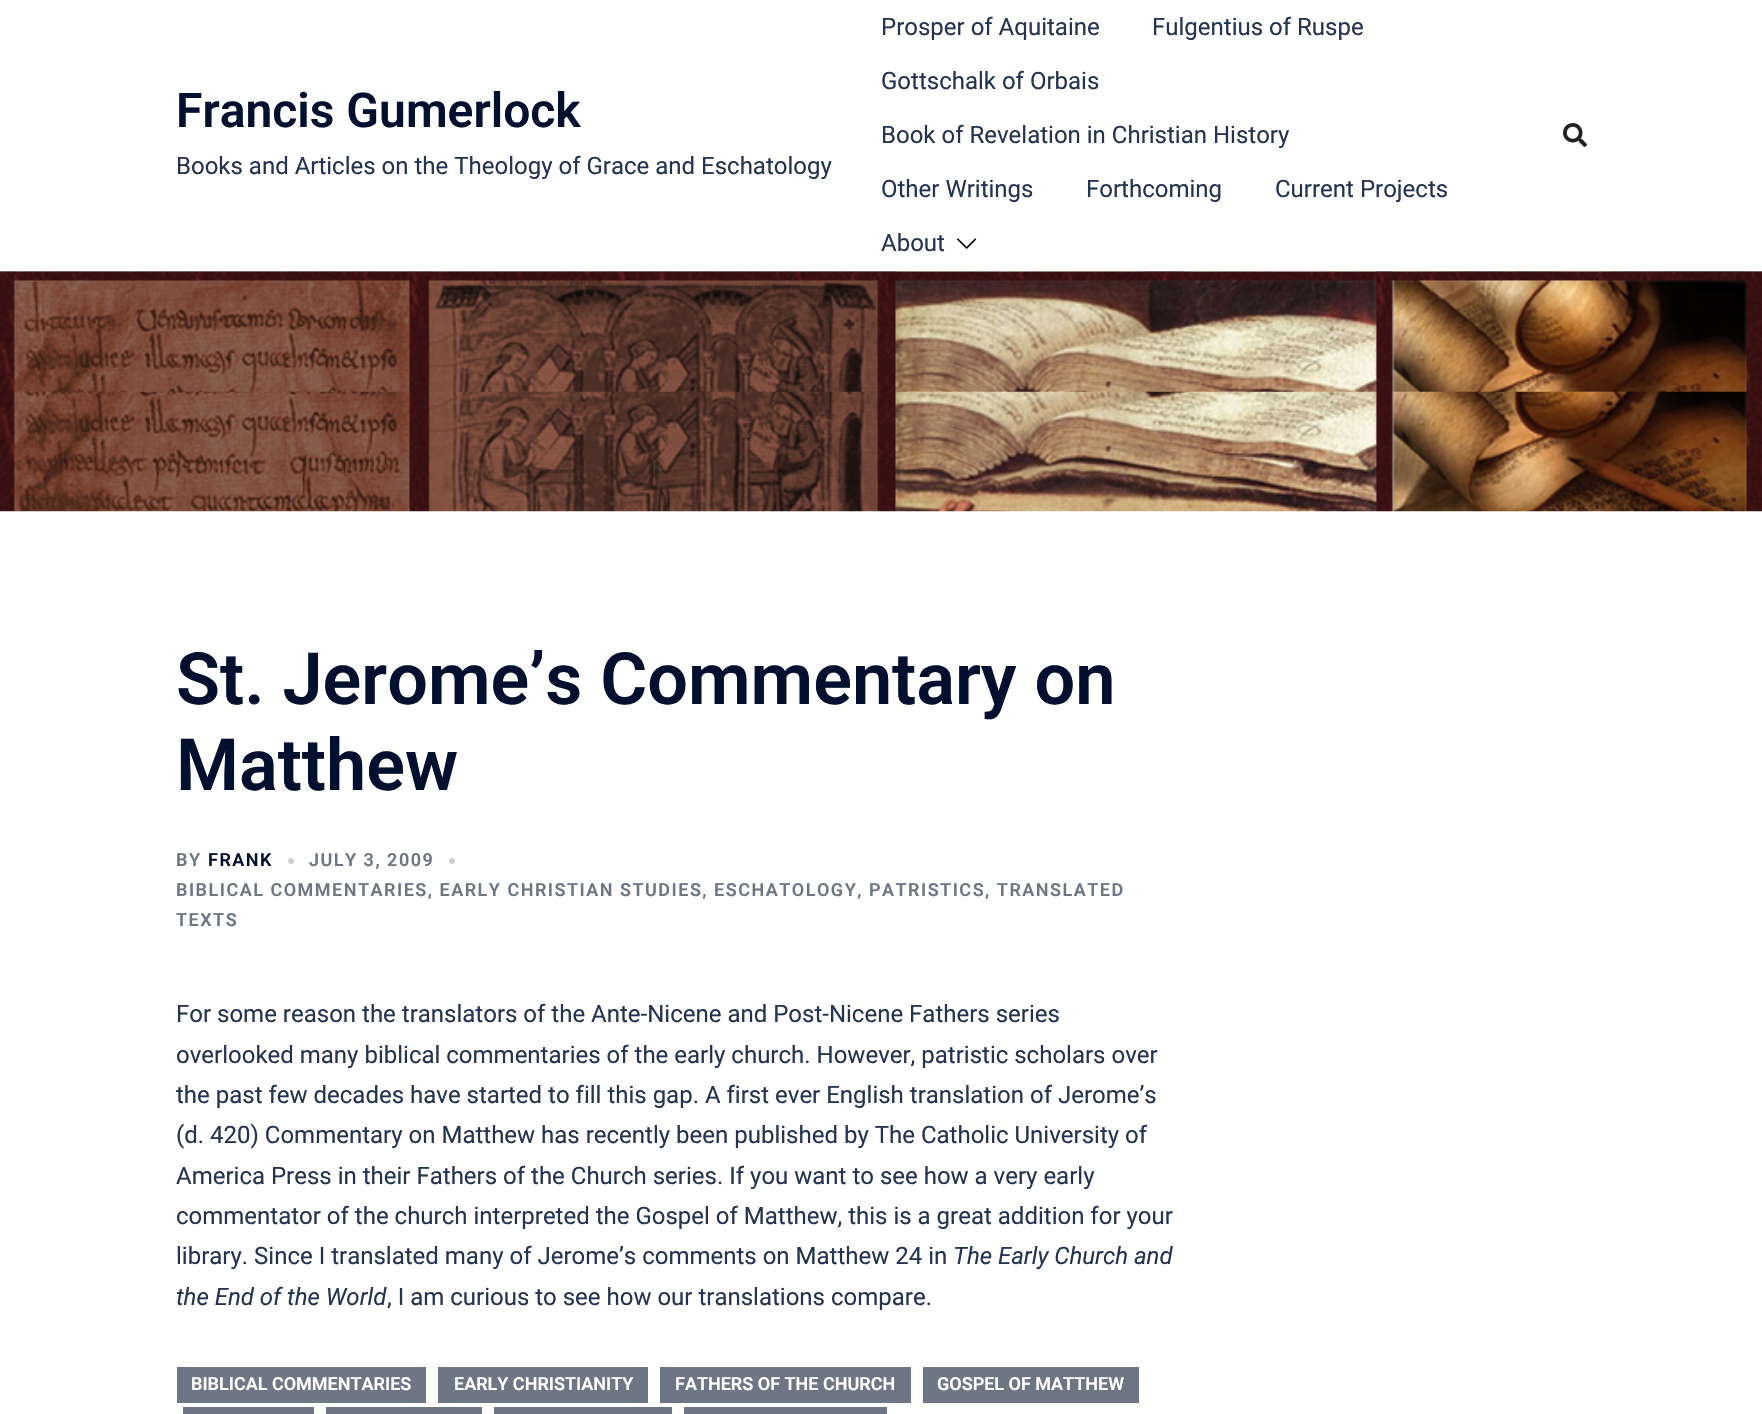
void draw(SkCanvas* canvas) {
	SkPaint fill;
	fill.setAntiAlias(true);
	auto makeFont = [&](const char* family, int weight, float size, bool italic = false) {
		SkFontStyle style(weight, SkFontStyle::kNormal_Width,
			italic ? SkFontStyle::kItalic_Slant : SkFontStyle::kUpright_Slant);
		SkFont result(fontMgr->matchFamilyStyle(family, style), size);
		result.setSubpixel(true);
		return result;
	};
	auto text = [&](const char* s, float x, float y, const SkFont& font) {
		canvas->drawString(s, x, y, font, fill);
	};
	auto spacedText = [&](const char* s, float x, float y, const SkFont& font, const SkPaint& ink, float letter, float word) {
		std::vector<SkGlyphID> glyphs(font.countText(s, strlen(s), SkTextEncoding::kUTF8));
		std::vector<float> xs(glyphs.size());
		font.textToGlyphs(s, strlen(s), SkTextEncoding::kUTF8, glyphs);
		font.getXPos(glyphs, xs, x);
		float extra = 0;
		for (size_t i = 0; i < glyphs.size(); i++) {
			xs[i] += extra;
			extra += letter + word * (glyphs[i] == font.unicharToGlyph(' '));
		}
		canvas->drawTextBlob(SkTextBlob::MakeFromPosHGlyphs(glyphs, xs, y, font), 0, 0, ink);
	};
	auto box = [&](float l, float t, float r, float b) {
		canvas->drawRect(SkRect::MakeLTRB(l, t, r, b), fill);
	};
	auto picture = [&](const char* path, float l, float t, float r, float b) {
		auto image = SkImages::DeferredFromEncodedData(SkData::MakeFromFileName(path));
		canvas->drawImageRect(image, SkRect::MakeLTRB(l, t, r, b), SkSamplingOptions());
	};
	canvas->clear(0xFFFFFFFF);
	picture("image2.png", 0, 271, 1762, 272);
	picture("image3.png", 0, 271, 1762, 392);
	fill.setColor(0x1AEAEAEA);
	box(0, 271, 1762, 272);
	picture("image0.png", 957, 238, 977, 249);
	picture("image1.png", 1563, 123, 1587, 147);
	picture("image4.png", 0, 391, 1762, 512);
	fill.setColor(0xFFCCCFD5);
	canvas->drawCircle(291, 861, 3, fill);
	canvas->drawCircle(452, 861, 3, fill);
	fill.setColor(0xFF6D7685);
	box(177, 1367, 426, 1403);
	box(438, 1367, 648, 1403);
	box(660, 1367, 911, 1403);
	box(923, 1367, 1139, 1403);
	box(183, 1407, 314, 1414);
	box(326, 1407, 482, 1414);
	box(494, 1407, 672, 1414);
	box(684, 1407, 887, 1414);
	auto font1 = makeFont("Roboto", 600, 48);
	fill.setColor(0xFF00102E);
	text("Francis Gumerlock", 176, 127, font1);
	auto font2 = makeFont("Roboto", 400, 24);
	fill.setColor(0xFF233452);
	text("Books and Articles on the Theology of Grace and Eschatology", 176, 174, font2);
	text("Prosper of Aquitaine", 881, 35, font2);
	text("Fulgentius of Ruspe", 1152, 35, font2);
	text("Gottschalk of Orbais", 881, 89, font2);
	text("Book of Revelation in Christian History", 881, 143, font2);
	text("Other Writings", 881, 197, font2);
	text("Forthcoming", 1086, 197, font2);
	text("Current Projects", 1275, 197, font2);
	text("About", 881, 251, font2);
	auto font3 = makeFont("Roboto", 600, 72);
	fill.setColor(0xFF00102E);
	text("St. Jerome’s Commentary on", 176, 704, font3);
	text("Matthew", 176, 790, font3);
	auto font4 = makeFont("Roboto", 600, 18);
	fill.setColor(0xFF6D7685);
	spacedText("BY", 176, 866, font4, fill, 1.5f, 0);
	fill.setColor(0xFF00102E);
	spacedText("FRANK", 208, 866, font4, fill, 1.5f, 0);
	fill.setColor(0xFF6D7685);
	spacedText("JULY 3, 2009", 309, 866, font4, fill, 1.5f, 0);
	spacedText("BIBLICAL COMMENTARIES, EARLY CHRISTIAN STUDIES, ESCHATOLOGY, PATRISTICS, TRANSLATED", 176, 896, font4, fill, 1.5f, 0);
	spacedText("TEXTS", 176, 926, font4, fill, 1.5f, 0);
	fill.setColor(0xFF233452);
	text("For some reason the translators of the Ante-Nicene and Post-Nicene Fathers series", 176, 1022, font2);
	text("overlooked many biblical commentaries of the early church. However, patristic scholars over", 176, 1063, font2);
	text("the past few decades have started to fill this gap. A first ever English translation of Jerome’s", 176, 1103, font2);
	text("(d. 420) Commentary on Matthew has recently been published by The Catholic University of", 176, 1143, font2);
	text("America Press in their Fathers of the Church series. If you want to see how a very early", 176, 1184, font2);
	text("commentator of the church interpreted the Gospel of Matthew, this is a great addition for your", 176, 1224, font2);
	text("library. Since I translated many of Jerome’s comments on Matthew 24 in", 176, 1264, font2);
	auto font5 = makeFont("Roboto", 400, 24, true);
	text("The Early Church and", 953, 1264, font5);
	text("the End of the World", 176, 1305, font5);
	text(", I am curious to see how our translations compare.", 387, 1305, font2);
	fill.setColor(0xFFFFFFFF);
	text("BIBLICAL COMMENTARIES", 191, 1390, font4);
	text("EARLY CHRISTIANITY", 454, 1390, font4);
	text("FATHERS OF THE CHURCH", 675, 1390, font4);
	text("GOSPEL OF MATTHEW", 937, 1390, font4);
}
